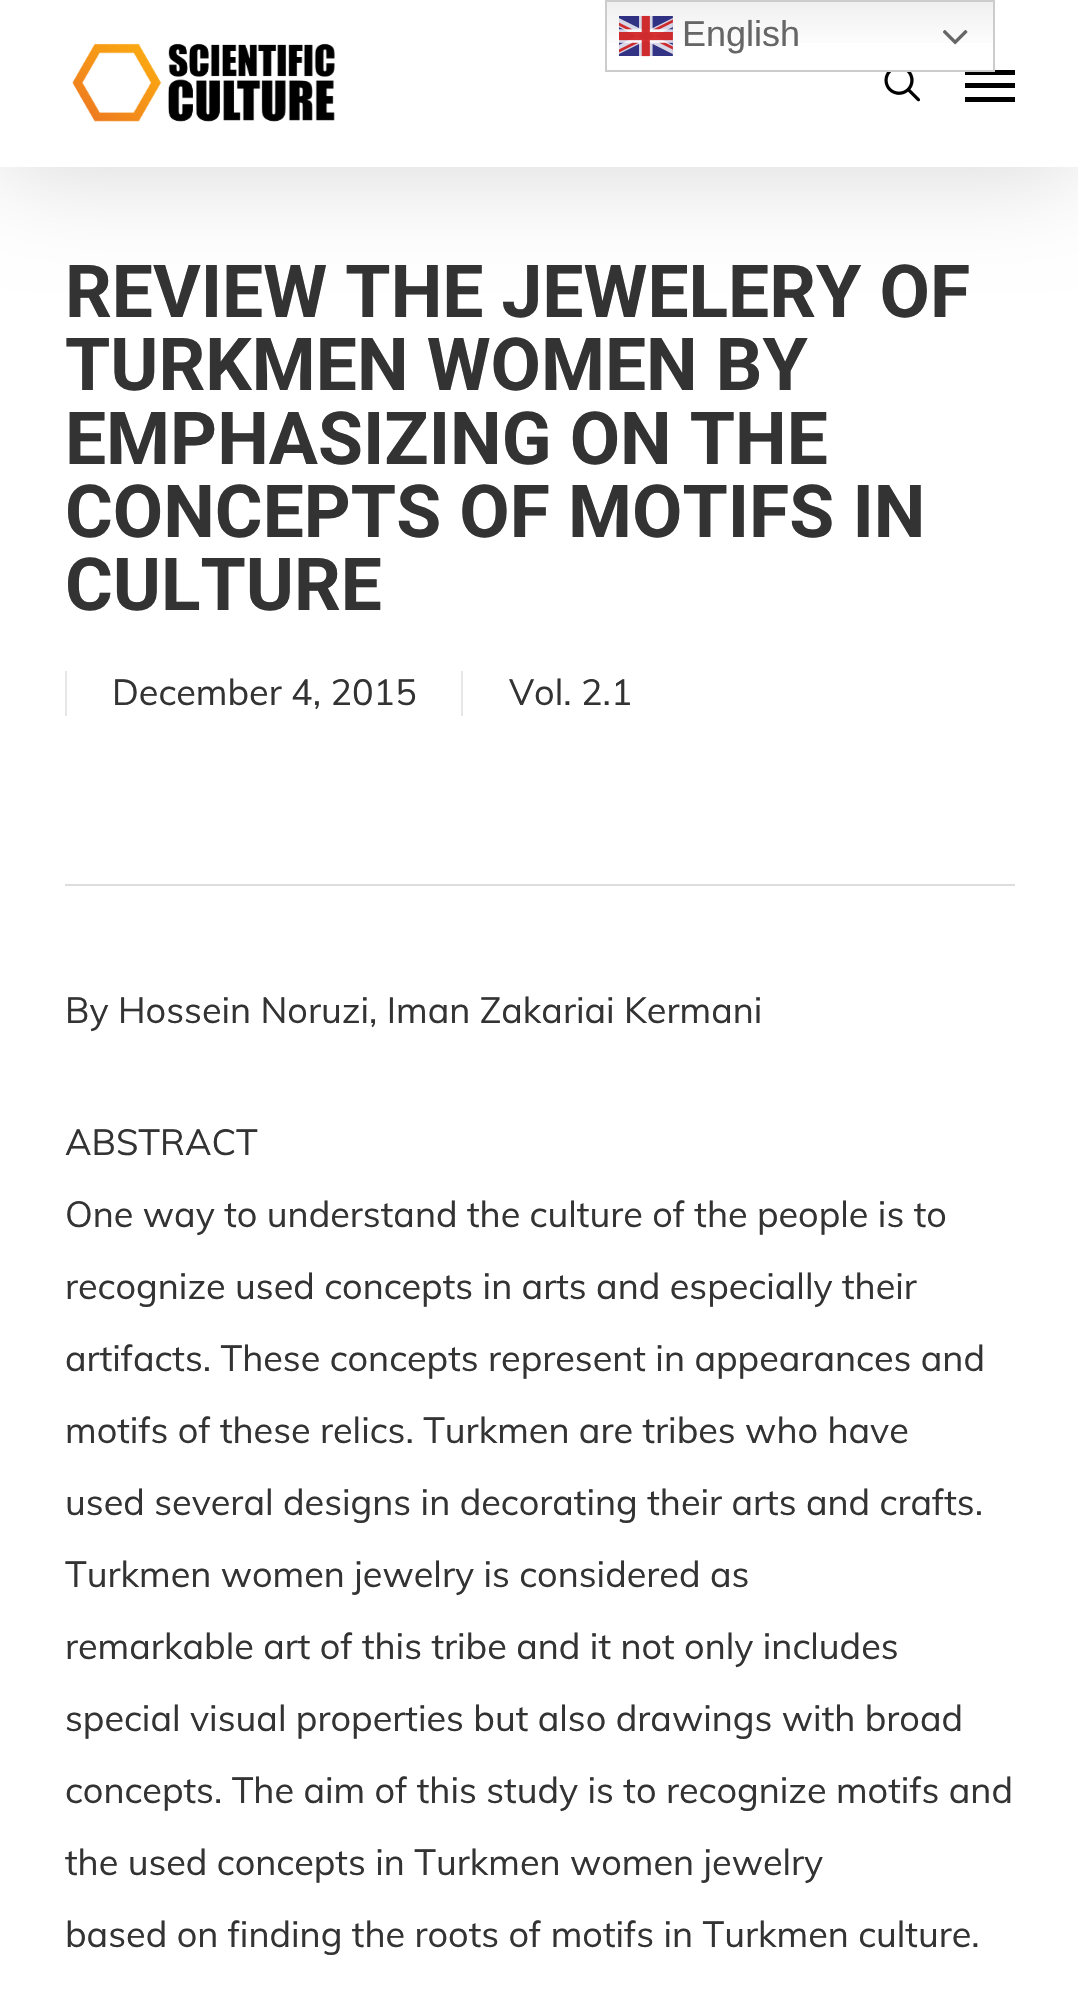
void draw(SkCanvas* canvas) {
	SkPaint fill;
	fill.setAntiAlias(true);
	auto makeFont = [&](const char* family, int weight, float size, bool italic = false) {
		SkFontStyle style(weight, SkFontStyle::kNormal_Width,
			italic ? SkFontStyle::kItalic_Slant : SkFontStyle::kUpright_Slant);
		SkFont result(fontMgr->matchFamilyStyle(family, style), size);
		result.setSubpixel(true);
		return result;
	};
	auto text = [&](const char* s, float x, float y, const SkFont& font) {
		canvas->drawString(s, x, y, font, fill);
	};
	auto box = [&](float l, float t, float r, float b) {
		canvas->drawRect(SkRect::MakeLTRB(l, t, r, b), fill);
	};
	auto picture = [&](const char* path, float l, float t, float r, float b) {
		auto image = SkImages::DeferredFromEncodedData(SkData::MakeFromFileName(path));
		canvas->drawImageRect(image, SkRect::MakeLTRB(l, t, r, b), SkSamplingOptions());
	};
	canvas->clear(0xFFFFFFFF);
	canvas->save();
	canvas->clipPath(SkPathBuilder(SkPathFillType::kEvenOdd).moveTo(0, 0).lineTo(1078, 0).lineTo(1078, 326).lineTo(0, 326).close().moveTo(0, 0).lineTo(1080, 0).lineTo(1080, 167).lineTo(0, 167).close().detach(), true);
	fill.setColor(0x26000000);
	fill.setMaskFilter(SkMaskFilter::MakeBlur(kNormal_SkBlurStyle, 50.5f));
	canvas->drawRect(SkRect::MakeLTRB(0, 7, 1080, 173), fill);
	fill.setMaskFilter(nullptr);
	canvas->restore();
	fill.setColor(0xF7FFFFFF);
	box(0, 166, 1078, 167);
	picture("image0.png", 72, 43, 335, 122);
	picture("image1.png", 884, 72, 920, 102);
	fill.setColor(0xFF000000);
	box(965, 70, 1015, 75);
	box(965, 97, 1015, 102);
	box(965, 83, 1015, 88);
	{
		const SkColor colors[] = {0xFFEFEFEF, 0xFFFFFFFF};
		const float stops[] = {0, 0.7f};
		const SkPoint ends[] = {{800, 0}, {800, 72}};
		fill.setShader(SkGradientShader::MakeLinear(ends, colors, stops, 2, SkTileMode::kClamp));
		fill.setAlpha(255);
	}
	box(607, 2, 993, 43);
	fill.setStyle(SkPaint::kStroke_Style);
	fill.setStrokeWidth(2);
	fill.setShader(nullptr);
	fill.setColor(0xFFCCCCCC);
	canvas->drawRect(SkRect::MakeLTRB(606, 1, 994, 71), fill);
	picture("image2.png", 619, 15, 673, 57);
	picture("image3.png", 943, 30, 968, 45);
	fill.setStyle(SkPaint::kFill_Style);
	fill.setColor(0xFFDDDDDD);
	box(65, 884, 1015, 886);
	fill.setColor(0xFFE6E6E6);
	box(65, 671, 67, 716);
	box(461, 671, 463, 716);
	auto font1 = makeFont("Liberation Sans", 400, 36);
	fill.setColor(0xFF666666);
	text("English", 682, 46, font1);
	auto font2 = makeFont("Roboto", 700, 73.1f);
	fill.setColor(0xFF333333);
	text("REVIEW THE JEWELERY OF", 65, 317, font2);
	text("TURKMEN WOMEN BY", 65, 390, font2);
	text("EMPHASIZING ON THE", 65, 464, font2);
	text("CONCEPTS OF MOTIFS IN", 65, 537, font2);
	text("CULTURE", 65, 610, font2);
	auto font3 = makeFont("Muli", 400, 36);
	text("December 4, 2015", 112, 705, font3);
	text("Vol. 2.1", 509, 705, font3);
	text("By Hossein Noruzi, Iman Zakariai Kermani", 65, 1023, font3);
	text("ABSTRACT", 65, 1155, font3);
	text("One way to understand the culture of the people is to", 65, 1227, font3);
	text("recognize used concepts in arts and especially their", 65, 1299, font3);
	text("artifacts. These concepts represent in appearances and", 65, 1371, font3);
	text("motifs of these relics. Turkmen are tribes who have", 65, 1443, font3);
	text("used several designs in decorating their arts and crafts.", 65, 1515, font3);
	text("Turkmen women jewelry is considered as", 65, 1587, font3);
	text("remarkable art of this tribe and it not only includes", 65, 1659, font3);
	text("special visual properties but also drawings with broad", 65, 1731, font3);
	text("concepts. The aim of this study is to recognize motifs and", 65, 1803, font3);
	text("the used concepts in Turkmen women jewelry", 65, 1875, font3);
	text("based on finding the roots of motifs in Turkmen culture.", 65, 1947, font3);
}
